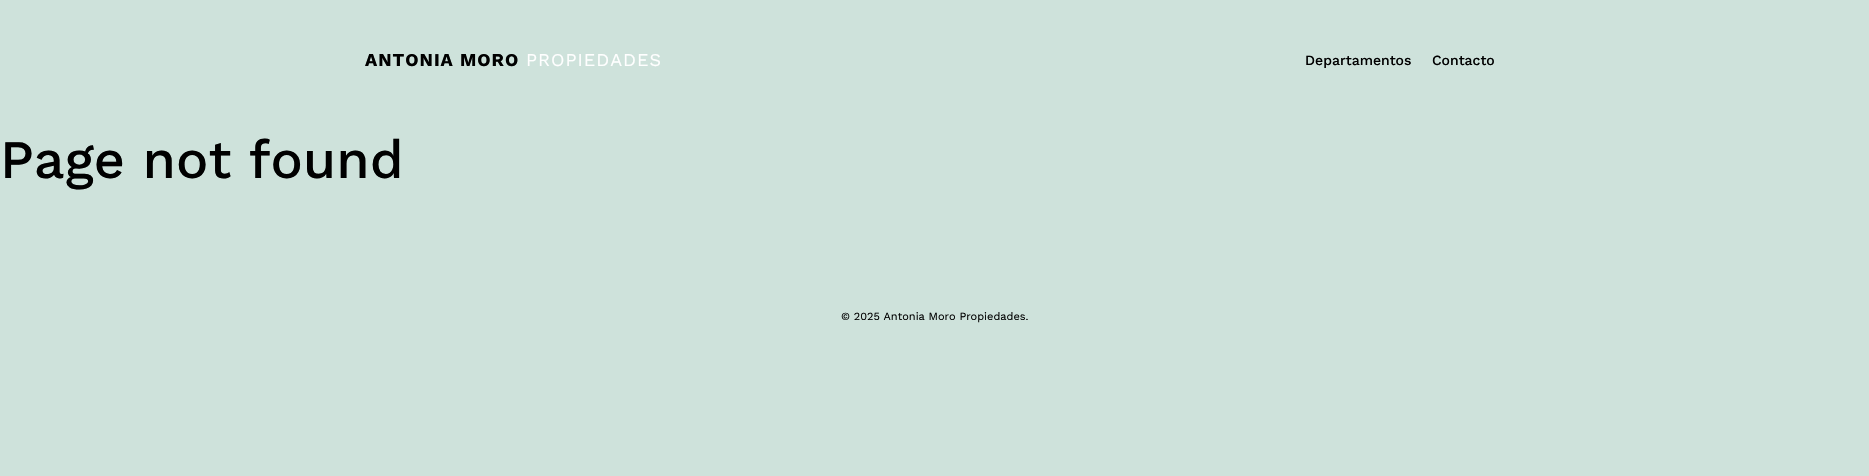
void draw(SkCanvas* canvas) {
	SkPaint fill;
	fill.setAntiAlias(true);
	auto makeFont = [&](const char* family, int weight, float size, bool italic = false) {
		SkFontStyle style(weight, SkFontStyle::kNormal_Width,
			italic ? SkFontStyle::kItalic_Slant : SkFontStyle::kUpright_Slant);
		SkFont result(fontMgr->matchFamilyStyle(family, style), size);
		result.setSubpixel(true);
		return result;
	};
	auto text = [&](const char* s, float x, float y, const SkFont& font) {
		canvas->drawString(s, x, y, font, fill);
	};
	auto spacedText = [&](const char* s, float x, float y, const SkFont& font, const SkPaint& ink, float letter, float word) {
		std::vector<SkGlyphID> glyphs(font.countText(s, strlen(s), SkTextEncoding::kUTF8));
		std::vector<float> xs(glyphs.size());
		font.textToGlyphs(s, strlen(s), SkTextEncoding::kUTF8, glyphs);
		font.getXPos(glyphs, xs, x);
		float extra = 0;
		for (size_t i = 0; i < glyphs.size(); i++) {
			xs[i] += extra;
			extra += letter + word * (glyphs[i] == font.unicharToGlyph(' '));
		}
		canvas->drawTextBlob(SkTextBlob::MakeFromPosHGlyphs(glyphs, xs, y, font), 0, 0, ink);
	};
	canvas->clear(0xFFCEE2DB);
	auto font1 = makeFont("Work Sans", 700, 18);
	fill.setColor(0xFF000000);
	spacedText("ANTONIA MORO", 365, 66, font1, fill, 1, 0);
	auto font2 = makeFont("Work Sans", 400, 18);
	fill.setColor(0xFFFFFFFF);
	spacedText("PROPIEDADES", 526, 66, font2, fill, 1, 0);
	auto font3 = makeFont("Work Sans", 500, 14);
	fill.setColor(0xFF000000);
	text("Departamentos", 1305, 65, font3);
	text("Contacto", 1432, 65, font3);
	auto font4 = makeFont("Work Sans", 500, 54);
	text("Page not found", 0, 178, font4);
	auto font5 = makeFont("Work Sans", 400, 11);
	text("© 2025 Antonia Moro Propiedades.", 841, 320, font5);
}
